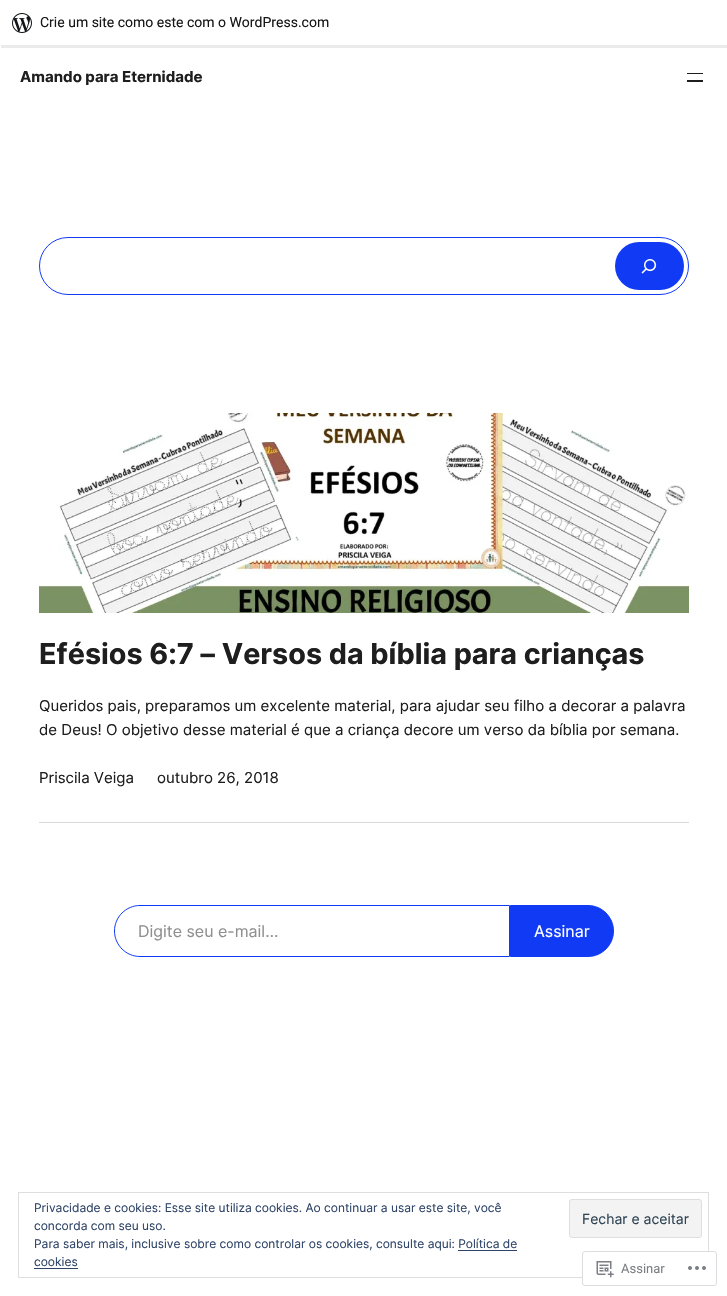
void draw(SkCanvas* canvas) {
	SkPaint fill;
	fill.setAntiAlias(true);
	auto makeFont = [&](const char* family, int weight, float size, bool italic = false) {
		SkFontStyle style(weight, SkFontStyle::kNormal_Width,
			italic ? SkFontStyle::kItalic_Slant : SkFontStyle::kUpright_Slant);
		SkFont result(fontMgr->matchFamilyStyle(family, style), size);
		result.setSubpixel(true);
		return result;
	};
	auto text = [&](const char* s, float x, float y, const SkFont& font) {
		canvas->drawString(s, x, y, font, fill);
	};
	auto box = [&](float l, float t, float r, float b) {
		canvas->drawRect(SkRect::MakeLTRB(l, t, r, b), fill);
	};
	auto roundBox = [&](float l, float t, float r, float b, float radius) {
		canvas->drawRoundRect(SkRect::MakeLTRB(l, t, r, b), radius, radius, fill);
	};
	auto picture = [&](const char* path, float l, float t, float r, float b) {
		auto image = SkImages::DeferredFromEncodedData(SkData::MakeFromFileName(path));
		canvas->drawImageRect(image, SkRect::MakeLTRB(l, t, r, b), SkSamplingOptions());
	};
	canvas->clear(0xFFFFFFFF);
	fill.setColor(0x14000000);
	canvas->drawPath(SkPathBuilder().moveTo(1, 45).lineTo(1, 48).lineTo(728, 48).lineTo(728, 3).lineTo(727, 3).lineTo(727, 45).close().detach(), fill);
	picture("image0.png", 12, 13, 32, 33);
	fill.setColor(0xFF1E1E1E);
	box(687, 73, 703, 74);
	box(687, 80, 703, 82);
	fill.setStyle(SkPaint::kStroke_Style);
	fill.setStrokeWidth(1);
	fill.setColor(0xFF113AF5);
	canvas->drawRoundRect(SkRect::MakeLTRB(39.5f, 237.5f, 688.5f, 294.5f), 28.5f, 28.5f, fill);
	fill.setStyle(SkPaint::kFill_Style);
	roundBox(615, 242, 684, 290, 24);
	picture("image1.png", 641, 259, 657, 274);
	picture("image2.png", 39, 413, 689, 613);
	fill.setColor(0xFFD9D9D9);
	box(39, 822, 689, 823);
	fill.setStyle(SkPaint::kStroke_Style);
	fill.setColor(0xFF113AF5);
	canvas->drawPath(SkPathBuilder().moveTo(140, 905.5f).lineTo(509.5f, 905.5f).lineTo(509.5f, 956.5f).lineTo(140, 956.5f).cubicTo(126, 956.5f, 114.5f, 945, 114.5f, 931).cubicTo(114.5f, 917, 126, 905.5f, 140, 905.5f).close().detach(), fill);
	fill.setStyle(SkPaint::kFill_Style);
	canvas->drawPath(SkPathBuilder().moveTo(510.5f, 905.5f).lineTo(588, 905.5f).cubicTo(602, 905.5f, 613.5f, 917, 613.5f, 931).cubicTo(613.5f, 945, 602, 956.5f, 588, 956.5f).lineTo(510.5f, 956.5f).close().detach(), fill);
	fill.setStyle(SkPaint::kStroke_Style);
	canvas->drawPath(SkPathBuilder().moveTo(510.5f, 905.5f).lineTo(588, 905.5f).cubicTo(602, 905.5f, 613.5f, 917, 613.5f, 931).cubicTo(613.5f, 945, 602, 956.5f, 588, 956.5f).lineTo(510.5f, 956.5f).close().detach(), fill);
	fill.setColor(0xFFDEDEDE);
	canvas->drawRect(SkRect::MakeLTRB(18.5f, 1192.5f, 708.5f, 1277.5f), fill);
	fill.setStyle(SkPaint::kFill_Style);
	fill.setColor(0xFFF3F3F3);
	canvas->drawRoundRect(SkRect::MakeLTRB(569.5f, 1199.5f, 701.5f, 1237.5f), 2.5f, 2.5f, fill);
	fill.setStyle(SkPaint::kStroke_Style);
	fill.setColor(0xFFDEDEDE);
	canvas->drawRoundRect(SkRect::MakeLTRB(569.5f, 1199.5f, 701.5f, 1237.5f), 2.5f, 2.5f, fill);
	fill.setStyle(SkPaint::kFill_Style);
	fill.setColor(0xFF2E4467);
	box(458, 1250, 517, 1251);
	box(34, 1268, 78, 1269);
	fill.setColor(0xFAFFFFFF);
	canvas->drawRoundRect(SkRect::MakeLTRB(582.5f, 1251.5f, 716.5f, 1285.5f), 2.5f, 2.5f, fill);
	fill.setStyle(SkPaint::kStroke_Style);
	fill.setColor(0xFFDDDDDF);
	canvas->drawRoundRect(SkRect::MakeLTRB(582.5f, 1251.5f, 716.5f, 1285.5f), 2.5f, 2.5f, fill);
	picture("image3.png", 596, 1261, 614, 1278);
	picture("image4.png", 688, 1266, 706, 1270);
	auto font1 = makeFont("Roboto", 400, 14);
	fill.setStyle(SkPaint::kFill_Style);
	fill.setColor(0xFF171717);
	text("Crie um site como este com o WordPress.com", 40, 27, font1);
	auto font2 = makeFont("Inter", 700, 15.05f);
	fill.setColor(0xFF1E1E1E);
	text("Amando para Eternidade", 20, 82, font2);
	auto font3 = makeFont("Inter", 700, 28.75f);
	text("Efésios 6:7 – Versos da bíblia para crianças", 39, 664, font3);
	auto font4 = makeFont("Inter", 400, 15.05f);
	text("Queridos pais, preparamos um excelente material, para ajudar seu filho a decorar a palavra", 39, 711, font4);
	text("de Deus! O objetivo desse material é que a criança decore um verso da bíblia por semana.", 39, 735, font4);
	text("Priscila Veiga", 39, 783, font4);
	text("outubro 26, 2018", 157, 783, font4);
	auto font5 = makeFont("Inter", 400, 16);
	fill.setColor(0xFF8F8F8F);
	text("Digite seu e-mail…", 138, 937, font5);
	fill.setColor(0xFFFFFFFF);
	text("Assinar", 534, 937, font5);
	auto font6 = makeFont("Inter", 400, 12);
	fill.setColor(0xFF2E4467);
	text("Privacidade e cookies: Esse site utiliza cookies. Ao continuar a usar este site, você", 34, 1212, font6);
	auto font7 = makeFont("Inter", 400, 14);
	fill.setColor(0xFF2E4453);
	text("Fechar e aceitar", 582, 1224, font7);
	fill.setColor(0xFF2E4467);
	text("concorda com seu uso.", 34, 1230, font6);
	text("Para saber mais, inclusive sobre como controlar os cookies, consulte aqui: Política de", 34, 1248, font6);
	text("cookies", 34, 1266, font6);
	auto font8 = makeFont("Roboto", 400, 13);
	fill.setColor(0xFF7B7F85);
	text("Assinar", 621, 1273, font8);
}
